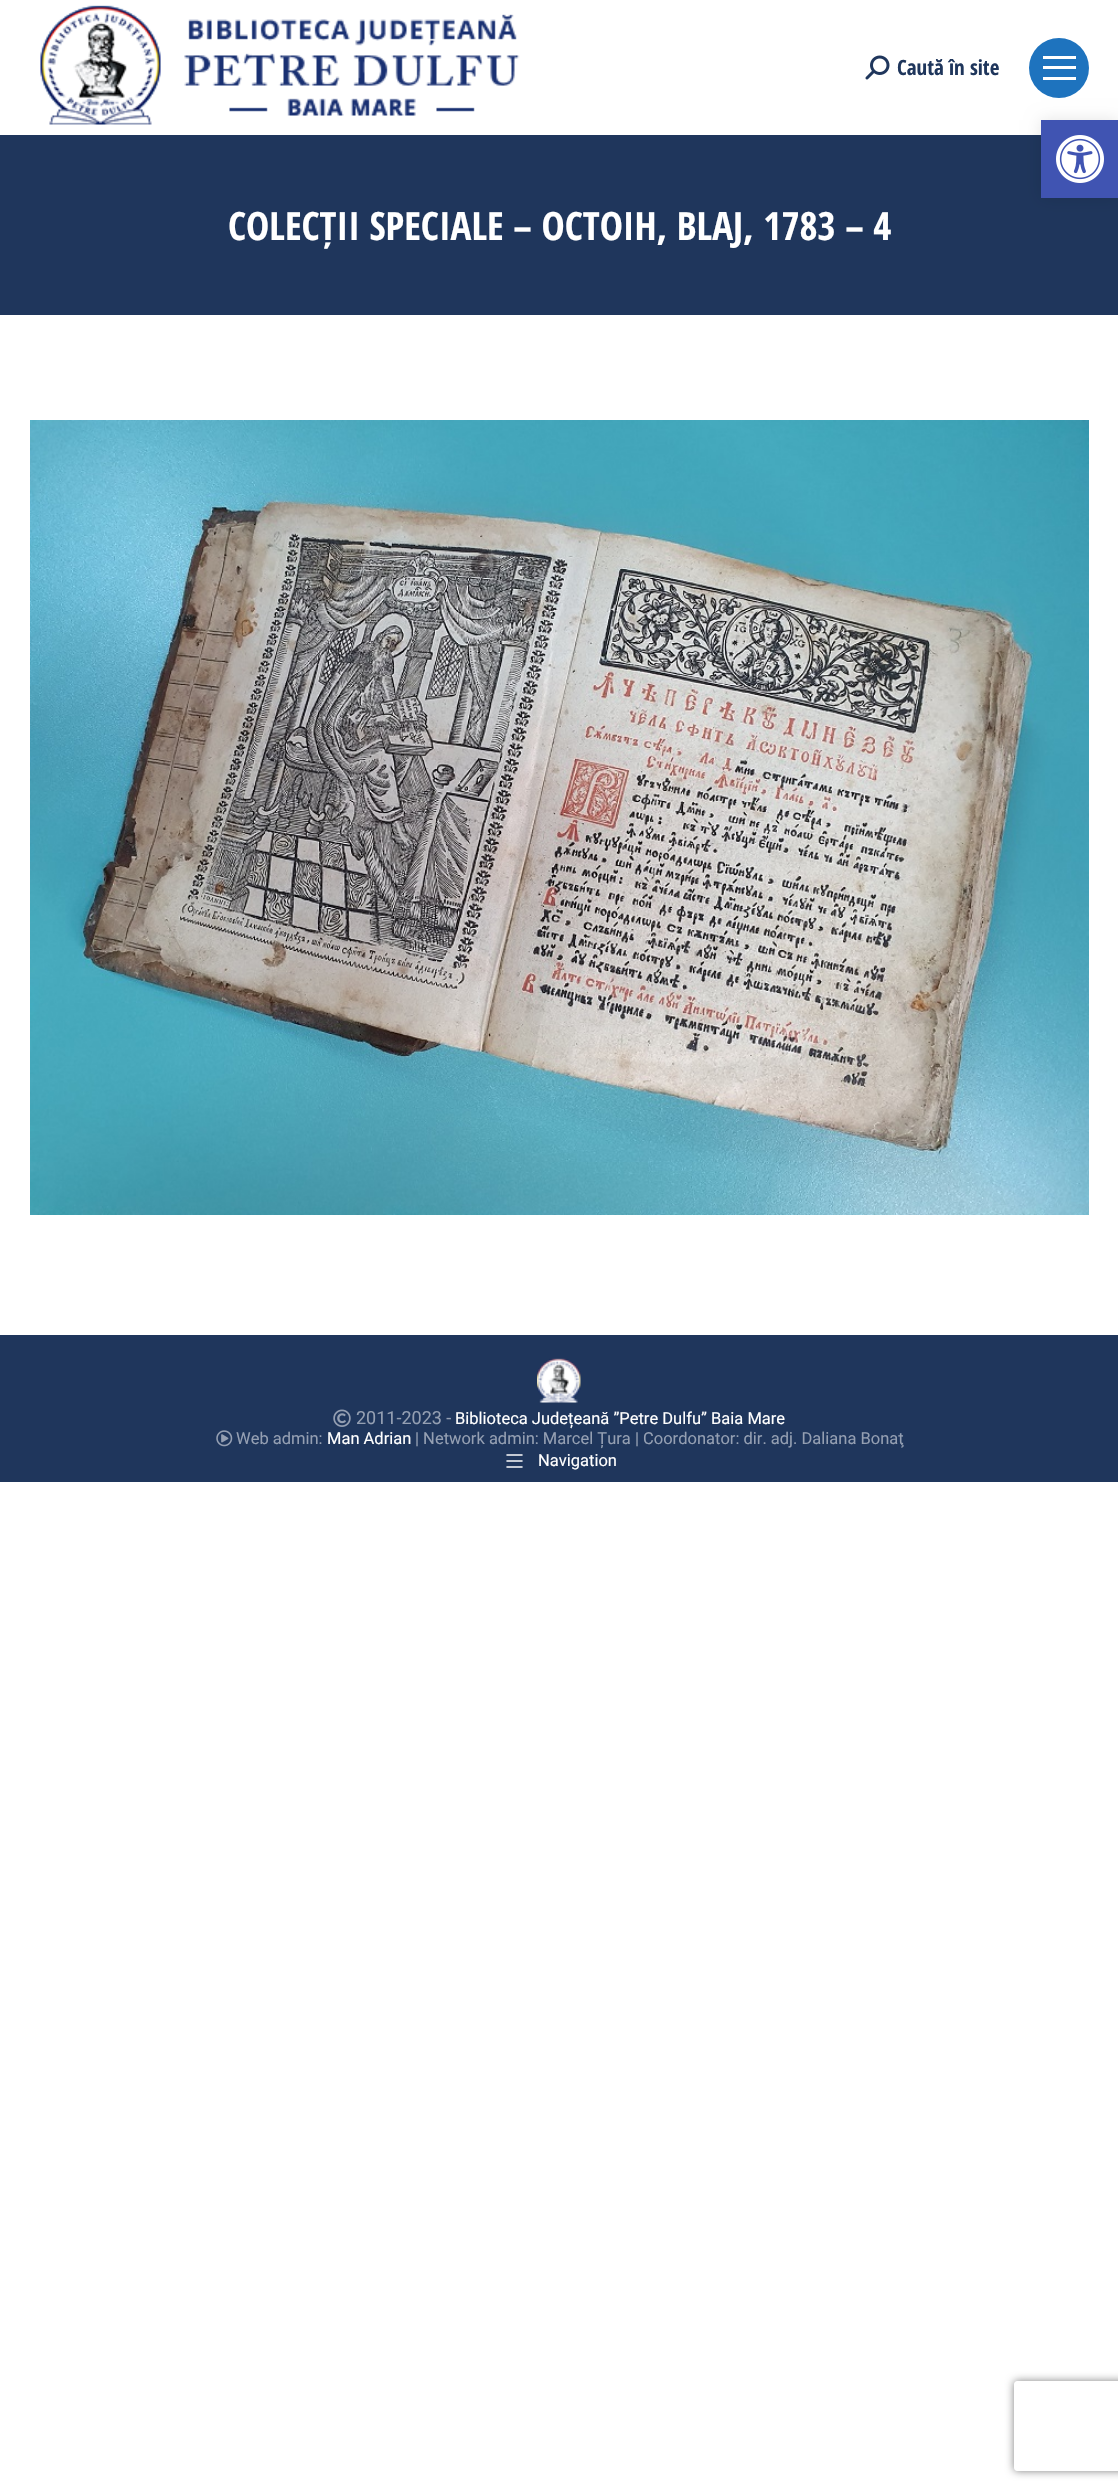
void draw(SkCanvas* canvas) {
	SkPaint fill;
	fill.setAntiAlias(true);
	auto makeFont = [&](const char* family, int weight, float size, bool italic = false) {
		SkFontStyle style(weight, SkFontStyle::kNormal_Width,
			italic ? SkFontStyle::kItalic_Slant : SkFontStyle::kUpright_Slant);
		SkFont result(fontMgr->matchFamilyStyle(family, style), size);
		result.setSubpixel(true);
		return result;
	};
	auto text = [&](const char* s, float x, float y, const SkFont& font) {
		canvas->drawString(s, x, y, font, fill);
	};
	auto box = [&](float l, float t, float r, float b) {
		canvas->drawRect(SkRect::MakeLTRB(l, t, r, b), fill);
	};
	auto picture = [&](const char* path, float l, float t, float r, float b) {
		auto image = SkImages::DeferredFromEncodedData(SkData::MakeFromFileName(path));
		canvas->drawImageRect(image, SkRect::MakeLTRB(l, t, r, b), SkSamplingOptions());
	};
	canvas->clear(0xFFFFFFFF);
	picture("image0.png", 40, 5, 520, 125);
	picture("image1.png", 865, 55, 890, 80);
	fill.setColor(0xFF1E73BE);
	canvas->drawCircle(1059, 68, 30, fill);
	fill.setColor(0xFFFFFFFF);
	box(1043, 56, 1076, 59);
	box(1043, 66, 1076, 69);
	box(1043, 77, 1076, 80);
	fill.setColor(0xFF1F365C);
	box(0, 135, 1118, 315);
	picture("image2.png", 30, 420, 1089, 1215);
	box(0, 1335, 1118, 1482);
	picture("image3.png", 537, 1358, 581, 1403);
	picture("image4.png", 333, 1409, 351, 1427);
	picture("image5.png", 216, 1430, 233, 1447);
	picture("image6.png", 506, 1454, 523, 1468);
	fill.setColor(0x1A000000);
	fill.setMaskFilter(SkMaskFilter::MakeBlur(kNormal_SkBlurStyle, 7.5f));
	canvas->drawRect(SkRect::MakeLTRB(1041, 120, 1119, 198), fill);
	fill.setMaskFilter(nullptr);
	fill.setColor(0xFF4054B2);
	box(1041, 120, 1118, 198);
	picture("image7.png", 1056, 135, 1104, 183);
	canvas->save();
	canvas->clipPath(SkPathBuilder(SkPathFillType::kEvenOdd).moveTo(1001, 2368).lineTo(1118, 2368).lineTo(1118, 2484).lineTo(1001, 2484).close().moveTo(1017, 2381).lineTo(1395, 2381).cubicTo(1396.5f, 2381, 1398, 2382.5f, 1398, 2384).lineTo(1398, 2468).cubicTo(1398, 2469.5f, 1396.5f, 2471, 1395, 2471).lineTo(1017, 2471).cubicTo(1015.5f, 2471, 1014, 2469.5f, 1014, 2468).lineTo(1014, 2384).cubicTo(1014, 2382.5f, 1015.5f, 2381, 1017, 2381).close().detach(), true);
	fill.setColor(0xFF808080);
	fill.setMaskFilter(SkMaskFilter::MakeBlur(kNormal_SkBlurStyle, 4));
	canvas->drawRoundRect(SkRect::MakeLTRB(1014, 2381, 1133, 2471), 3, 3, fill);
	fill.setMaskFilter(nullptr);
	canvas->restore();
	auto font1 = makeFont("Open Sans Condensed", 700, 21);
	fill.setColor(0xFF1F365C);
	text("Caută în site", 897, 75, font1);
	auto font2 = makeFont("Open Sans Condensed", 700, 39);
	fill.setColor(0xFFFFFFFF);
	text("COLECȚII SPECIALE – OCTOIH, BLAJ, 1783 – 4", 228, 240, font2);
	auto font3 = makeFont("Roboto", 400, 18);
	fill.setColor(0xFF949FB2);
	text("2011-2023 -", 356, 1424, font3);
	auto font4 = makeFont("Roboto", 400, 16.5f);
	fill.setColor(0xFFFFFFFF);
	text("Biblioteca Județeană ”Petre Dulfu” Baia Mare", 455, 1424, font4);
	fill.setColor(0xFF949FB2);
	text("Web admin:", 236, 1444, font4);
	fill.setColor(0xFFFFFFFF);
	text("Man Adrian", 327, 1444, font4);
	fill.setColor(0xFF949FB2);
	text("| Network admin: Marcel Țura | Coordonator: dir. adj. Daliana Bonaţ", 415, 1444, font4);
	fill.setColor(0xFFFFFFFF);
	text("Navigation", 538, 1466, font4);
}
